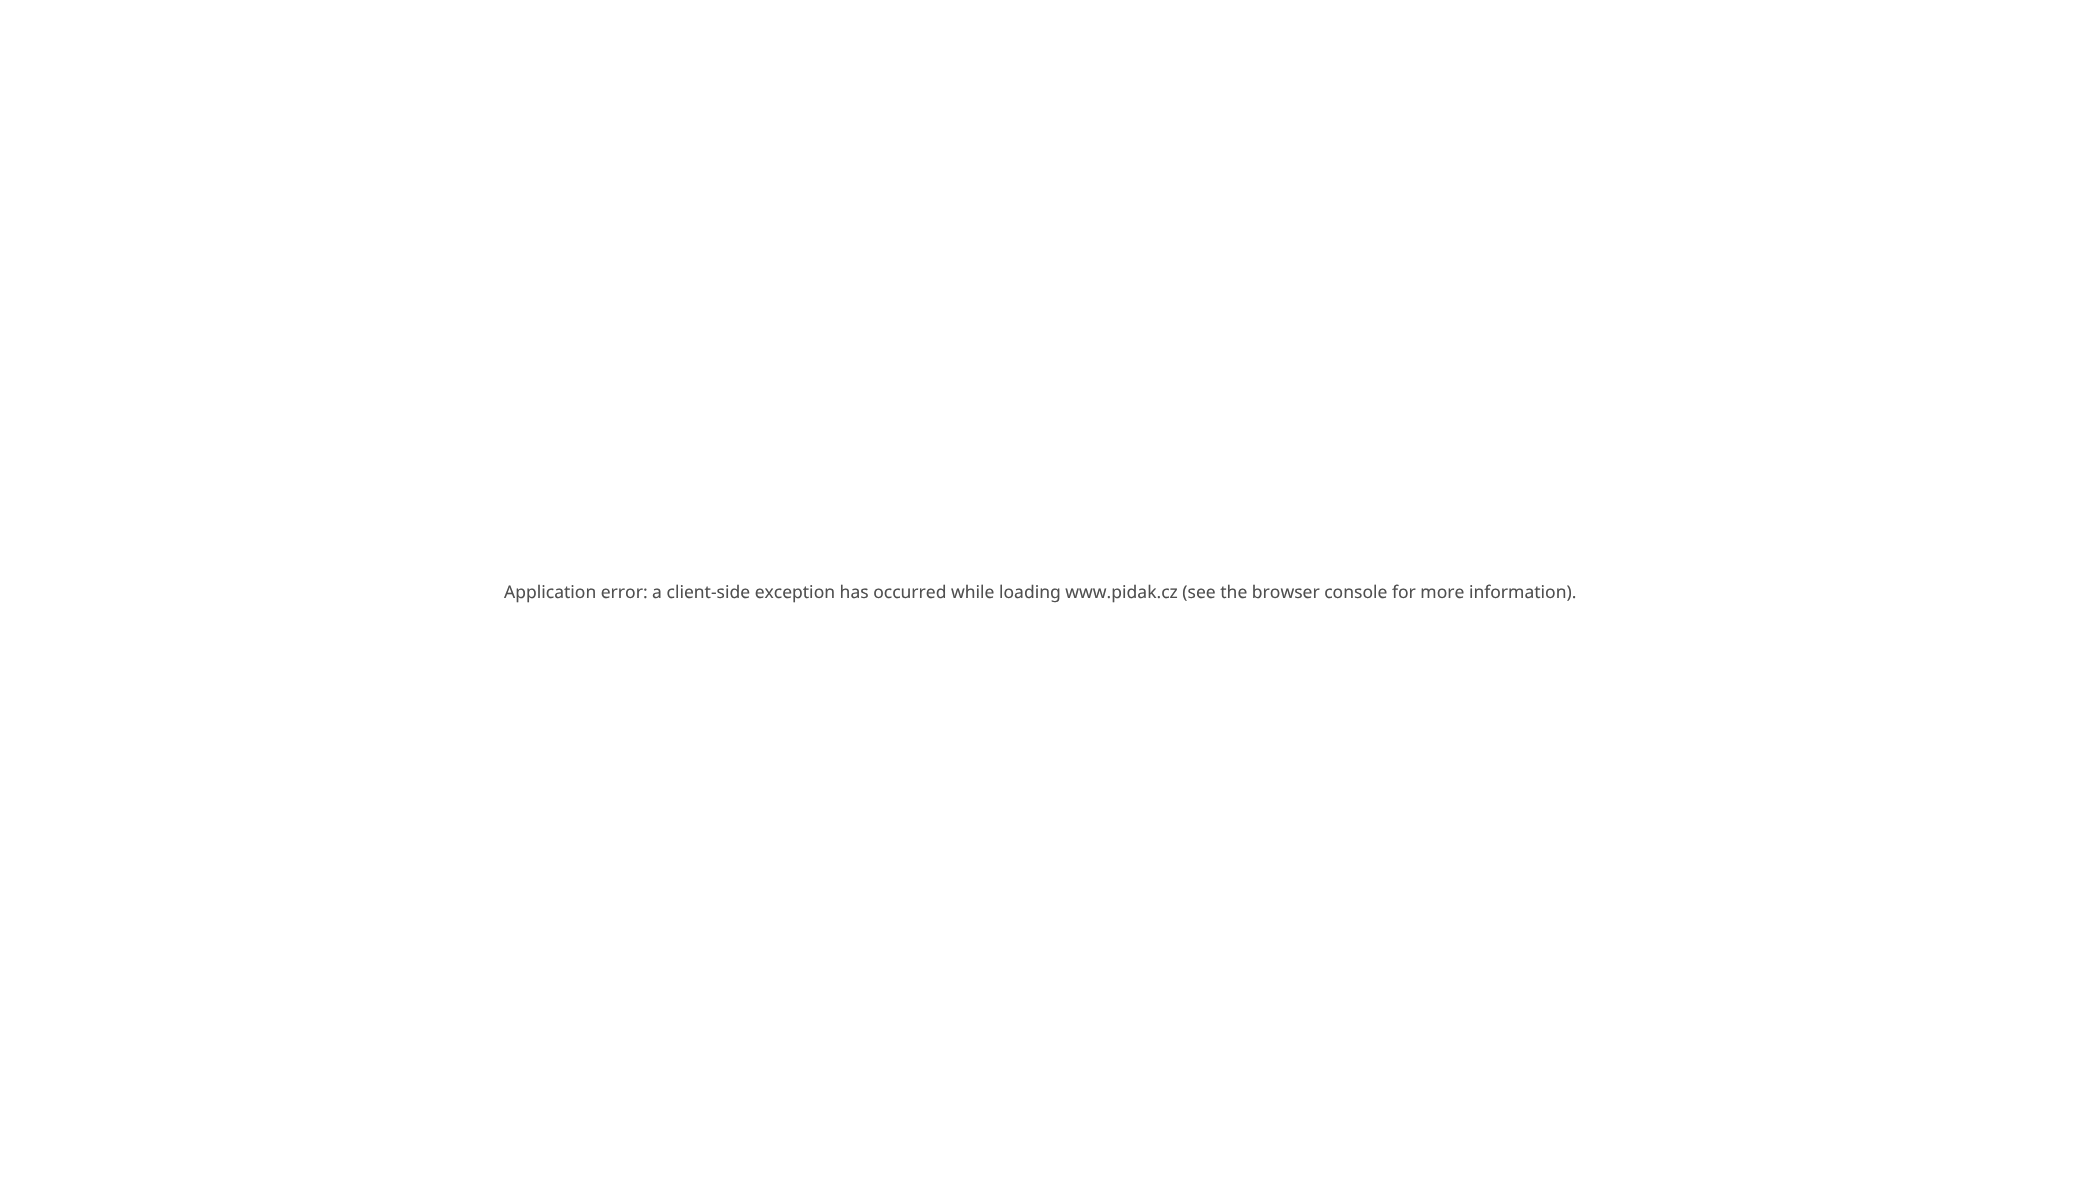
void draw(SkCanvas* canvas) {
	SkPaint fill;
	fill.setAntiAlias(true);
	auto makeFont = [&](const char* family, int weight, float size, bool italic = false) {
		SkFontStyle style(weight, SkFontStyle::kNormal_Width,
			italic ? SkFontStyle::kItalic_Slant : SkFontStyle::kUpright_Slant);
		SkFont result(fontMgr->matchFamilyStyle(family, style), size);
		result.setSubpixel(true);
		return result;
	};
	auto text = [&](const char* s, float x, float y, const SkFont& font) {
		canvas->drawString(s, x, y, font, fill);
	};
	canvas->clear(0xFFFFFFFF);
	auto font1 = makeFont("Noto Sans", 400, 17.5f);
	fill.setColor(0xFF505050);
	text("Application error: a client-side exception has occurred while loading www.pidak.cz (see the browser console for more information).", 504, 598, font1);
}
